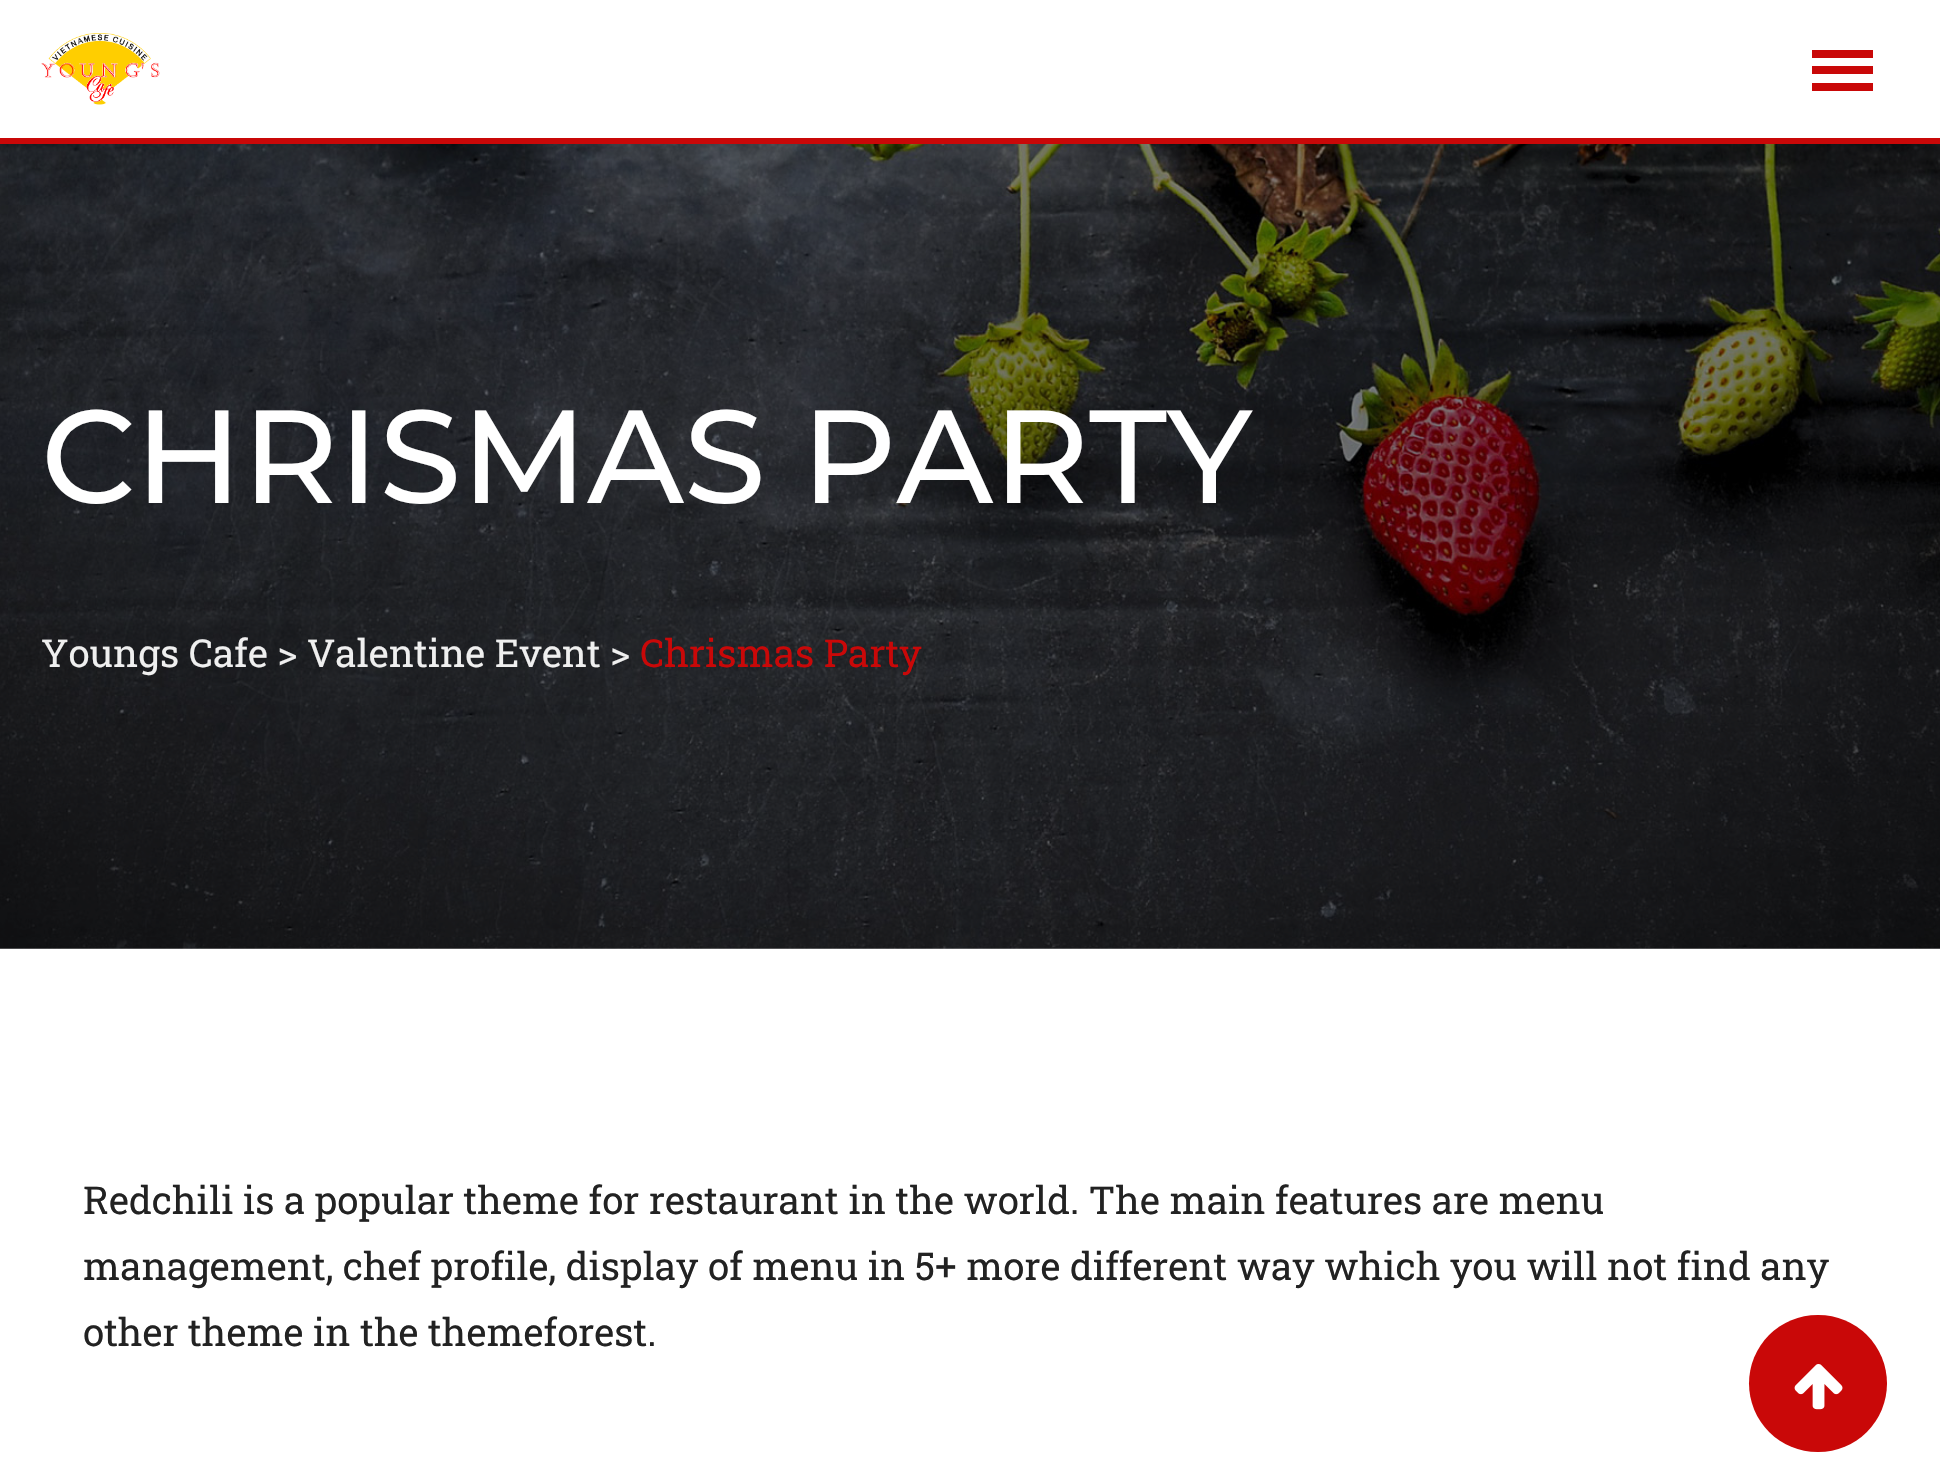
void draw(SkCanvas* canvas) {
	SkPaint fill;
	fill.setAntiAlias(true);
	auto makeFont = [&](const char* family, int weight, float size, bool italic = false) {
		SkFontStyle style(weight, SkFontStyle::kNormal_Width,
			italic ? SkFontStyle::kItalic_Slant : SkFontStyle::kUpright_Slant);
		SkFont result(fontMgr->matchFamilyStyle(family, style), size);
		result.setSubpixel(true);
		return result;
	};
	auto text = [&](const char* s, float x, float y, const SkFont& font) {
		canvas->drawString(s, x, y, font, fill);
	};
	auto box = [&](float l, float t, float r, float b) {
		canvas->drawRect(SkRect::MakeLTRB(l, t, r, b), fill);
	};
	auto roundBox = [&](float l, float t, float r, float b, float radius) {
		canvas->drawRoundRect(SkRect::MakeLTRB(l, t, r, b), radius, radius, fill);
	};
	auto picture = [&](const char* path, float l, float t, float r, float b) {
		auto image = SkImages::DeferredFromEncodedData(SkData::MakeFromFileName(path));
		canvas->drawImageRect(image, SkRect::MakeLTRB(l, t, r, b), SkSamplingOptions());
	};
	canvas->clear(0xFFFFFFFF);
	fill.setColor(0xFFC90808);
	box(0, 138, 1940, 144);
	picture("image0.png", 41, 33, 160, 105);
	box(1812, 50, 1873, 58);
	box(1812, 66, 1873, 74);
	box(1812, 83, 1873, 91);
	picture("image1.png", 0, 144, 1940, 949);
	roundBox(1749, 1315, 1887, 1452, 68.5f);
	picture("image2.png", 1794, 1364, 1843, 1410);
	auto font1 = makeFont("Montserrat", 500, 132);
	fill.setColor(0xFFFFFFFF);
	text("CHRISMAS PARTY", 41, 503, font1);
	auto font2 = makeFont("Roboto Slab", 400, 38.5f);
	fill.setColor(0xFFEFEFEF);
	text("Youngs Cafe > Valentine Event >", 41, 667, font2);
	fill.setColor(0xFFC90808);
	text("Chrismas Party", 640, 667, font2);
	fill.setColor(0xFF222222);
	text("Redchili is a popular theme for restaurant in the world. The main features are menu", 83, 1214, font2);
	text("management, chef profile, display of menu in 5+ more different way which you will not find any", 83, 1280, font2);
	text("other theme in the themeforest.", 83, 1346, font2);
}
